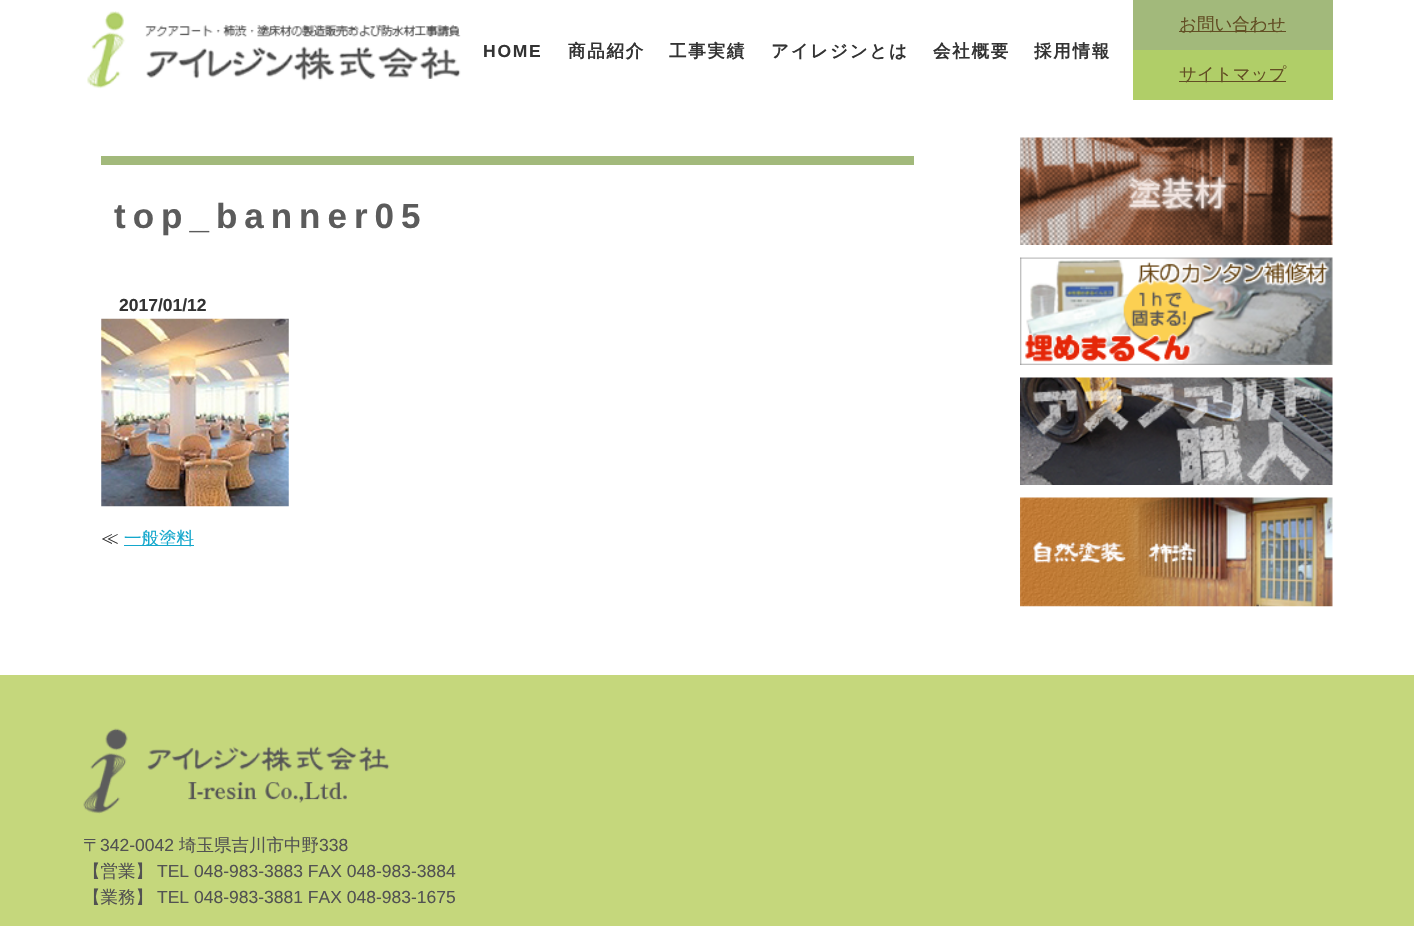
void draw(SkCanvas* canvas) {
	SkPaint fill;
	fill.setAntiAlias(true);
	auto makeFont = [&](const char* family, int weight, float size, bool italic = false) {
		SkFontStyle style(weight, SkFontStyle::kNormal_Width,
			italic ? SkFontStyle::kItalic_Slant : SkFontStyle::kUpright_Slant);
		SkFont result(fontMgr->matchFamilyStyle(family, style), size);
		result.setSubpixel(true);
		return result;
	};
	auto text = [&](const char* s, float x, float y, const SkFont& font) {
		canvas->drawString(s, x, y, font, fill);
	};
	auto spacedText = [&](const char* s, float x, float y, const SkFont& font, const SkPaint& ink, float letter, float word) {
		std::vector<SkGlyphID> glyphs(font.countText(s, strlen(s), SkTextEncoding::kUTF8));
		std::vector<float> xs(glyphs.size());
		font.textToGlyphs(s, strlen(s), SkTextEncoding::kUTF8, glyphs);
		font.getXPos(glyphs, xs, x);
		float extra = 0;
		for (size_t i = 0; i < glyphs.size(); i++) {
			xs[i] += extra;
			extra += letter + word * (glyphs[i] == font.unicharToGlyph(' '));
		}
		canvas->drawTextBlob(SkTextBlob::MakeFromPosHGlyphs(glyphs, xs, y, font), 0, 0, ink);
	};
	auto box = [&](float l, float t, float r, float b) {
		canvas->drawRect(SkRect::MakeLTRB(l, t, r, b), fill);
	};
	auto picture = [&](const char* path, float l, float t, float r, float b) {
		auto image = SkImages::DeferredFromEncodedData(SkData::MakeFromFileName(path));
		canvas->drawImageRect(image, SkRect::MakeLTRB(l, t, r, b), SkSamplingOptions());
	};
	canvas->clear(0xFFFFFFFF);
	picture("image0.png", 87, 11, 461, 89);
	fill.setColor(0xFFA2B97B);
	box(1133, 0, 1333, 50);
	fill.setColor(0xFF624E24);
	box(1179, 31, 1286, 32);
	fill.setColor(0xFFB0CE68);
	box(1133, 50, 1333, 100);
	fill.setColor(0xFF624E24);
	box(1179, 81, 1286, 82);
	fill.setColor(0xFFA2B97B);
	box(101, 156, 914, 165);
	picture("image1.png", 101, 318, 289, 507);
	fill.setColor(0xFF14A7CC);
	box(124, 545, 194, 546);
	picture("image2.png", 1020, 137, 1333, 245);
	picture("image3.png", 1020, 257, 1333, 365);
	picture("image4.png", 1020, 377, 1333, 485);
	picture("image5.png", 1020, 497, 1333, 607);
	fill.setColor(0xFFC5D77C);
	box(0, 675, 1414, 926);
	picture("image6.png", 83, 728, 390, 814);
	auto font1 = makeFont("Liberation Sans", 700, 17.5f);
	fill.setColor(0xFF333333);
	spacedText("HOME", 483, 57, font1, fill, 1.75f, 0);
	auto font2 = makeFont("WenQuanYi Zen Hei", 700, 17.5f);
	spacedText("商品紹介", 568, 57, font2, fill, 1.75f, 0);
	spacedText("工事実績", 669, 57, font2, fill, 1.75f, 0);
	spacedText("アイレジンとは", 771, 57, font2, fill, 1.75f, 0);
	spacedText("会社概要", 933, 57, font2, fill, 1.75f, 0);
	spacedText("採用情報", 1034, 57, font2, fill, 1.75f, 0);
	auto font3 = makeFont("WenQuanYi Zen Hei", 500, 17.5f);
	fill.setColor(0xFF624E24);
	text("お問い合わせ", 1179, 30, font3);
	text("サイトマップ", 1179, 80, font3);
	auto font4 = makeFont("Liberation Sans", 700, 35);
	fill.setColor(0xFF5B5B5B);
	spacedText("top_banner05", 114, 228, font4, fill, 7, 0);
	fill.setColor(0xFF333333);
	text("2017/01/12", 119, 311, font1);
	text("≪", 101, 544, font3);
	fill.setColor(0xFF14A7CC);
	text("一般塗料", 124, 544, font3);
	fill.setColor(0xFF525252);
	text("〒", 83, 851, font3);
	auto font5 = makeFont("Liberation Sans", 400, 17.5f);
	text("342-0042", 100, 851, font5);
	text("埼玉県吉川市中野", 179, 851, font3);
	text("338", 319, 851, font5);
	text("【営業】", 83, 877, font3);
	text("TEL 048-983-3883 FAX 048-983-3884", 157, 877, font5);
	text("【業務】", 83, 903, font3);
	text("TEL 048-983-3881 FAX 048-983-1675", 157, 903, font5);
}
